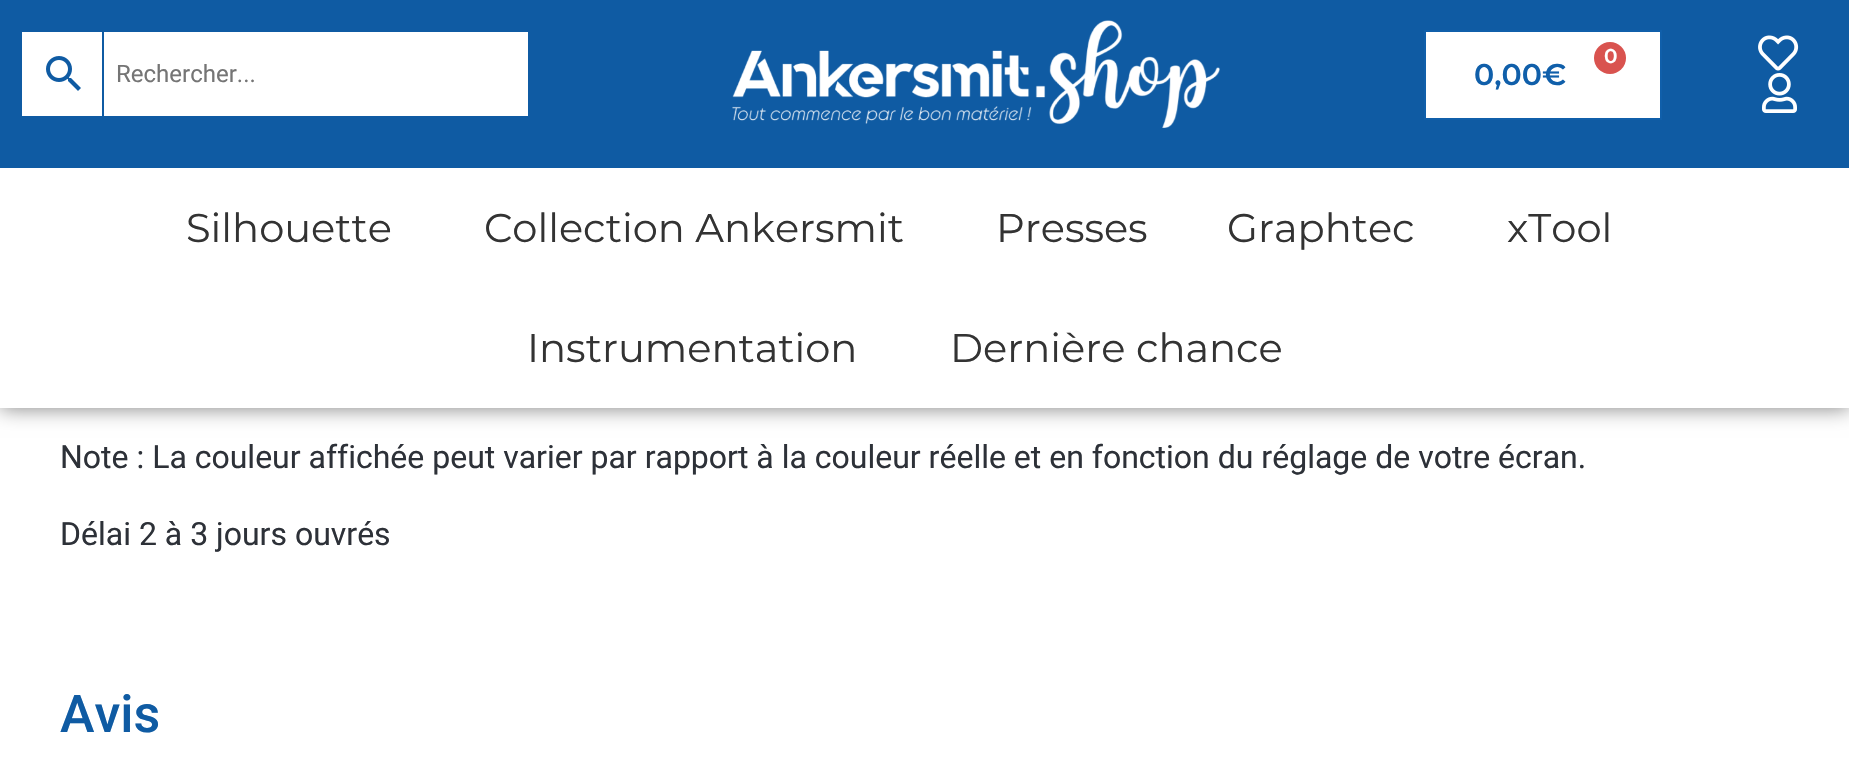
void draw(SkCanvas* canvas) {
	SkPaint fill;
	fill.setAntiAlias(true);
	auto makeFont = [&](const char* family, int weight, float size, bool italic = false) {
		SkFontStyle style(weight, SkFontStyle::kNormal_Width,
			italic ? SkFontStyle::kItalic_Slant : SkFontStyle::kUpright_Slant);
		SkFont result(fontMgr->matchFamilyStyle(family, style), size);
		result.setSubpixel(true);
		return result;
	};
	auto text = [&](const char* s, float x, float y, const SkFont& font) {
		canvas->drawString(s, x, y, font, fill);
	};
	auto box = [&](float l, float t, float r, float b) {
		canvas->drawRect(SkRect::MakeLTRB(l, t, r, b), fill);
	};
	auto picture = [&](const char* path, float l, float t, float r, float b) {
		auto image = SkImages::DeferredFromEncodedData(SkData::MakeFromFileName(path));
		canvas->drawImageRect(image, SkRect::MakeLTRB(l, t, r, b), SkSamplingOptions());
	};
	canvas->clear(0xFFFFFFFF);
	fill.setColor(0x80000000);
	fill.setMaskFilter(SkMaskFilter::MakeBlur(kNormal_SkBlurStyle, 10));
	canvas->drawRect(SkRect::MakeLTRB(0, 0, 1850, 408), fill);
	fill.setMaskFilter(nullptr);
	fill.setColor(0xFF0F5BA3);
	box(0, 0, 1849, 168);
	fill.setColor(0xFFFFFFFF);
	box(22, 32, 102, 116);
	picture("image0.png", 46, 56, 81, 91);
	box(104, 32, 528, 116);
	picture("image1.png", 732, 20, 1220, 128);
	canvas->drawRect(SkRect::MakeLTRB(1425, 31, 1661, 119), fill);
	fill.setStyle(SkPaint::kStroke_Style);
	fill.setStrokeWidth(2);
	fill.setColor(0xFF105FAA);
	canvas->drawRect(SkRect::MakeLTRB(1425, 31, 1661, 119), fill);
	fill.setStyle(SkPaint::kFill_Style);
	fill.setColor(0xFFD9534F);
	canvas->drawCircle(1610, 58, 16, fill);
	picture("image2.png", 1758, 35, 1799, 71);
	picture("image3.png", 1762, 73, 1797, 113);
	fill.setColor(0xFFFFFFFF);
	box(0, 168, 1849, 408);
	auto font1 = makeFont("Roboto", 400, 24);
	fill.setColor(0xFF757575);
	text("Rechercher...", 116, 82, font1);
	auto font2 = makeFont("Montserrat", 600, 20);
	fill.setColor(0xFFFFFFFF);
	text("0", 1604, 63, font2);
	auto font3 = makeFont("Montserrat", 600, 30);
	fill.setColor(0xFF105FAA);
	text("0,00€", 1474, 85, font3);
	auto font4 = makeFont("Montserrat", 400, 40);
	fill.setColor(0xFF333333);
	text("Silhouette", 186, 242, font4);
	text("Collection Ankersmit", 484, 242, font4);
	text("Presses", 996, 242, font4);
	text("Graphtec", 1227, 242, font4);
	text("xTool", 1507, 242, font4);
	text("Instrumentation", 527, 362, font4);
	text("Dernière chance", 950, 362, font4);
	auto font5 = makeFont("Roboto", 400, 32);
	fill.setColor(0xFF2D3138);
	text("Note : La couleur affichée peut varier par rapport à la couleur réelle et en fonction du réglage de votre écran.", 60, 468, font5);
	text("Délai 2 à 3 jours ouvrés", 60, 545, font5);
	auto font6 = makeFont("Roboto", 500, 52);
	fill.setColor(0xFF0F5BA3);
	text("Avis", 60, 732, font6);
}
